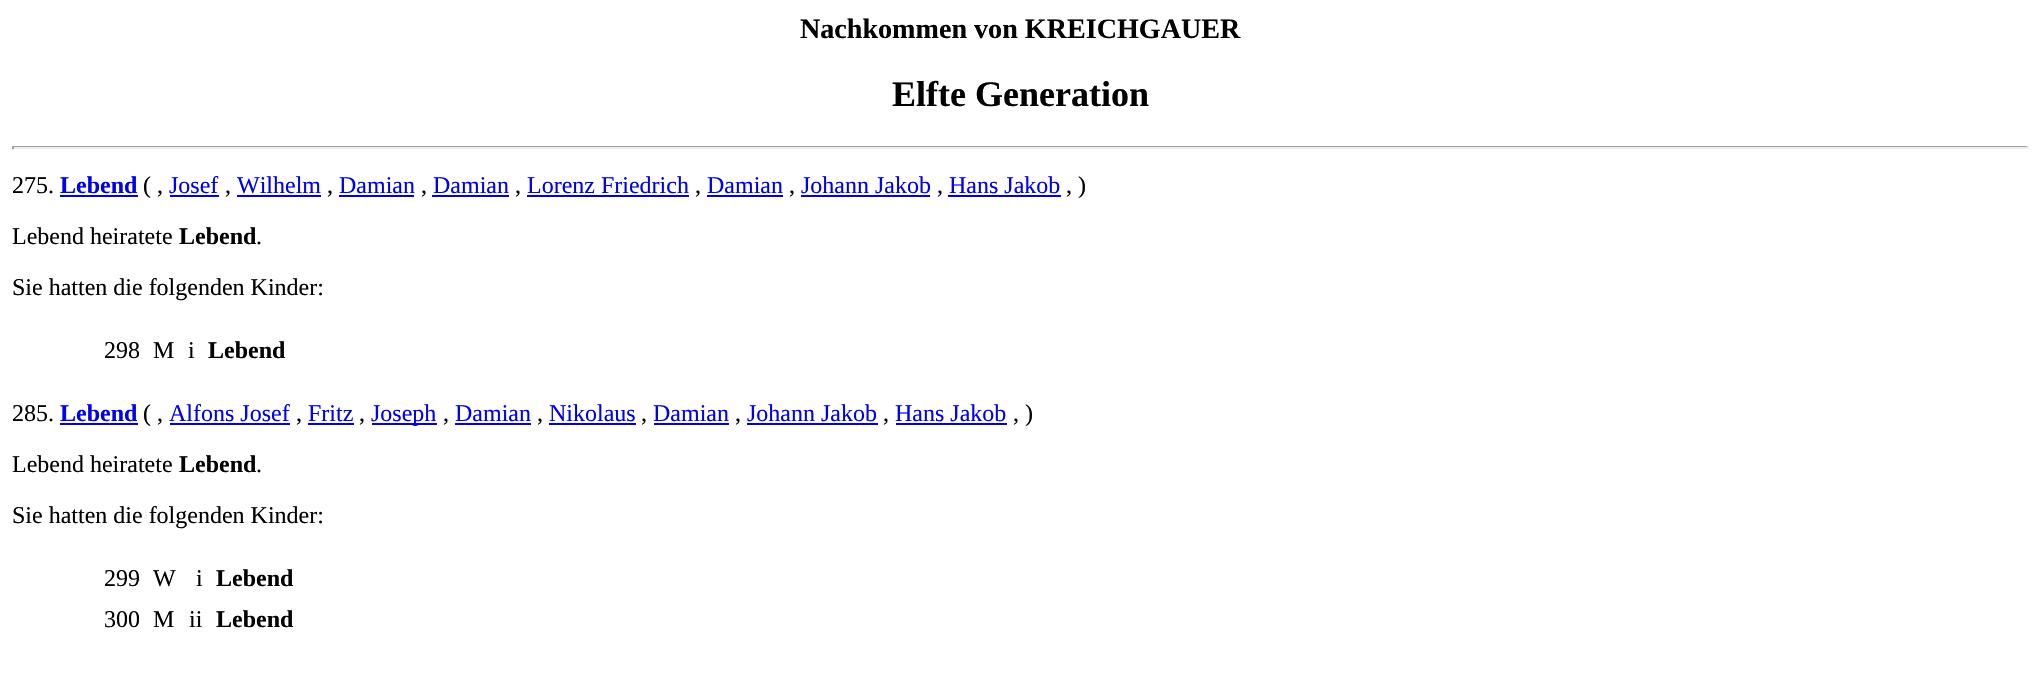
void draw(SkCanvas* canvas) {
	SkPaint fill;
	fill.setAntiAlias(true);
	auto makeFont = [&](const char* family, int weight, float size, bool italic = false) {
		SkFontStyle style(weight, SkFontStyle::kNormal_Width,
			italic ? SkFontStyle::kItalic_Slant : SkFontStyle::kUpright_Slant);
		SkFont result(fontMgr->matchFamilyStyle(family, style), size);
		result.setSubpixel(true);
		return result;
	};
	auto text = [&](const char* s, float x, float y, const SkFont& font) {
		canvas->drawString(s, x, y, font, fill);
	};
	auto box = [&](float l, float t, float r, float b) {
		canvas->drawRect(SkRect::MakeLTRB(l, t, r, b), fill);
	};
	canvas->clear(0xFFFFFFFF);
	fill.setColor(0xFF9F9F9F);
	box(12, 146, 2028, 147);
	fill.setColor(0xFFEEEEEE);
	box(2027, 146, 2029, 149);
	box(12, 147, 2028, 149);
	fill.setColor(0xFF9F9F9F);
	box(12, 146, 14, 149);
	fill.setColor(0xFF0000EE);
	box(60, 195, 138, 197);
	box(170, 195, 219, 197);
	box(237, 195, 321, 197);
	box(339, 195, 414, 197);
	box(432, 195, 509, 197);
	box(527, 195, 689, 197);
	box(707, 195, 783, 197);
	box(801, 195, 930, 197);
	box(948, 195, 1061, 197);
	box(60, 423, 138, 425);
	box(170, 423, 290, 425);
	box(308, 423, 354, 425);
	box(372, 423, 437, 425);
	box(455, 423, 531, 425);
	box(549, 423, 636, 425);
	box(654, 423, 729, 425);
	box(747, 423, 878, 425);
	box(896, 423, 1007, 425);
	auto font1 = makeFont("Liberation Serif", 700, 28.1f);
	fill.setColor(0xFF000000);
	text("Nachkommen von KREICHGAUER", 800, 38, font1);
	auto font2 = makeFont("Liberation Serif", 700, 36);
	text("Elfte Generation", 892, 106, font2);
	auto font3 = makeFont("Liberation Serif", 400, 24);
	text("275.", 12, 193, font3);
	auto font4 = makeFont("Liberation Serif", 700, 24);
	fill.setColor(0xFF0000EE);
	text("Lebend", 60, 193, font4);
	fill.setColor(0xFF000000);
	text("( ,", 143, 193, font3);
	fill.setColor(0xFF0000EE);
	text("Josef", 169, 193, font3);
	fill.setColor(0xFF000000);
	text(",", 225, 193, font3);
	fill.setColor(0xFF0000EE);
	text("Wilhelm", 237, 193, font3);
	fill.setColor(0xFF000000);
	text(",", 327, 193, font3);
	fill.setColor(0xFF0000EE);
	text("Damian", 339, 193, font3);
	fill.setColor(0xFF000000);
	text(",", 421, 193, font3);
	fill.setColor(0xFF0000EE);
	text("Damian", 433, 193, font3);
	fill.setColor(0xFF000000);
	text(",", 515, 193, font3);
	fill.setColor(0xFF0000EE);
	text("Lorenz Friedrich", 527, 193, font3);
	fill.setColor(0xFF000000);
	text(",", 695, 193, font3);
	fill.setColor(0xFF0000EE);
	text("Damian", 707, 193, font3);
	fill.setColor(0xFF000000);
	text(",", 789, 193, font3);
	fill.setColor(0xFF0000EE);
	text("Johann Jakob", 801, 193, font3);
	fill.setColor(0xFF000000);
	text(",", 937, 193, font3);
	fill.setColor(0xFF0000EE);
	text("Hans Jakob", 949, 193, font3);
	fill.setColor(0xFF000000);
	text(", )", 1066, 193, font3);
	text("Lebend heiratete", 12, 244, font3);
	text("Lebend", 179, 244, font4);
	text(".", 256, 244, font3);
	text("Sie hatten die folgenden Kinder:", 12, 295, font3);
	text("298", 104, 358, font3);
	text("M", 153, 358, font3);
	text("i", 188, 358, font3);
	text("Lebend", 208, 358, font4);
	text("285.", 12, 421, font3);
	fill.setColor(0xFF0000EE);
	text("Lebend", 60, 421, font4);
	fill.setColor(0xFF000000);
	text("( ,", 143, 421, font3);
	fill.setColor(0xFF0000EE);
	text("Alfons Josef", 169, 421, font3);
	fill.setColor(0xFF000000);
	text(",", 296, 421, font3);
	fill.setColor(0xFF0000EE);
	text("Fritz", 308, 421, font3);
	fill.setColor(0xFF000000);
	text(",", 359, 421, font3);
	fill.setColor(0xFF0000EE);
	text("Joseph", 371, 421, font3);
	fill.setColor(0xFF000000);
	text(",", 443, 421, font3);
	fill.setColor(0xFF0000EE);
	text("Damian", 455, 421, font3);
	fill.setColor(0xFF000000);
	text(",", 537, 421, font3);
	fill.setColor(0xFF0000EE);
	text("Nikolaus", 549, 421, font3);
	fill.setColor(0xFF000000);
	text(",", 641, 421, font3);
	fill.setColor(0xFF0000EE);
	text("Damian", 653, 421, font3);
	fill.setColor(0xFF000000);
	text(",", 735, 421, font3);
	fill.setColor(0xFF0000EE);
	text("Johann Jakob", 747, 421, font3);
	fill.setColor(0xFF000000);
	text(",", 883, 421, font3);
	fill.setColor(0xFF0000EE);
	text("Hans Jakob", 895, 421, font3);
	fill.setColor(0xFF000000);
	text(", )", 1013, 421, font3);
	text("Lebend heiratete", 12, 472, font3);
	text("Lebend", 179, 472, font4);
	text(".", 256, 472, font3);
	text("Sie hatten die folgenden Kinder:", 12, 523, font3);
	text("299", 104, 586, font3);
	text("W", 153, 586, font3);
	text("i", 196, 586, font3);
	text("Lebend", 216, 586, font4);
	text("300", 104, 627, font3);
	text("M", 153, 627, font3);
	text("ii", 189, 627, font3);
	text("Lebend", 216, 627, font4);
}
